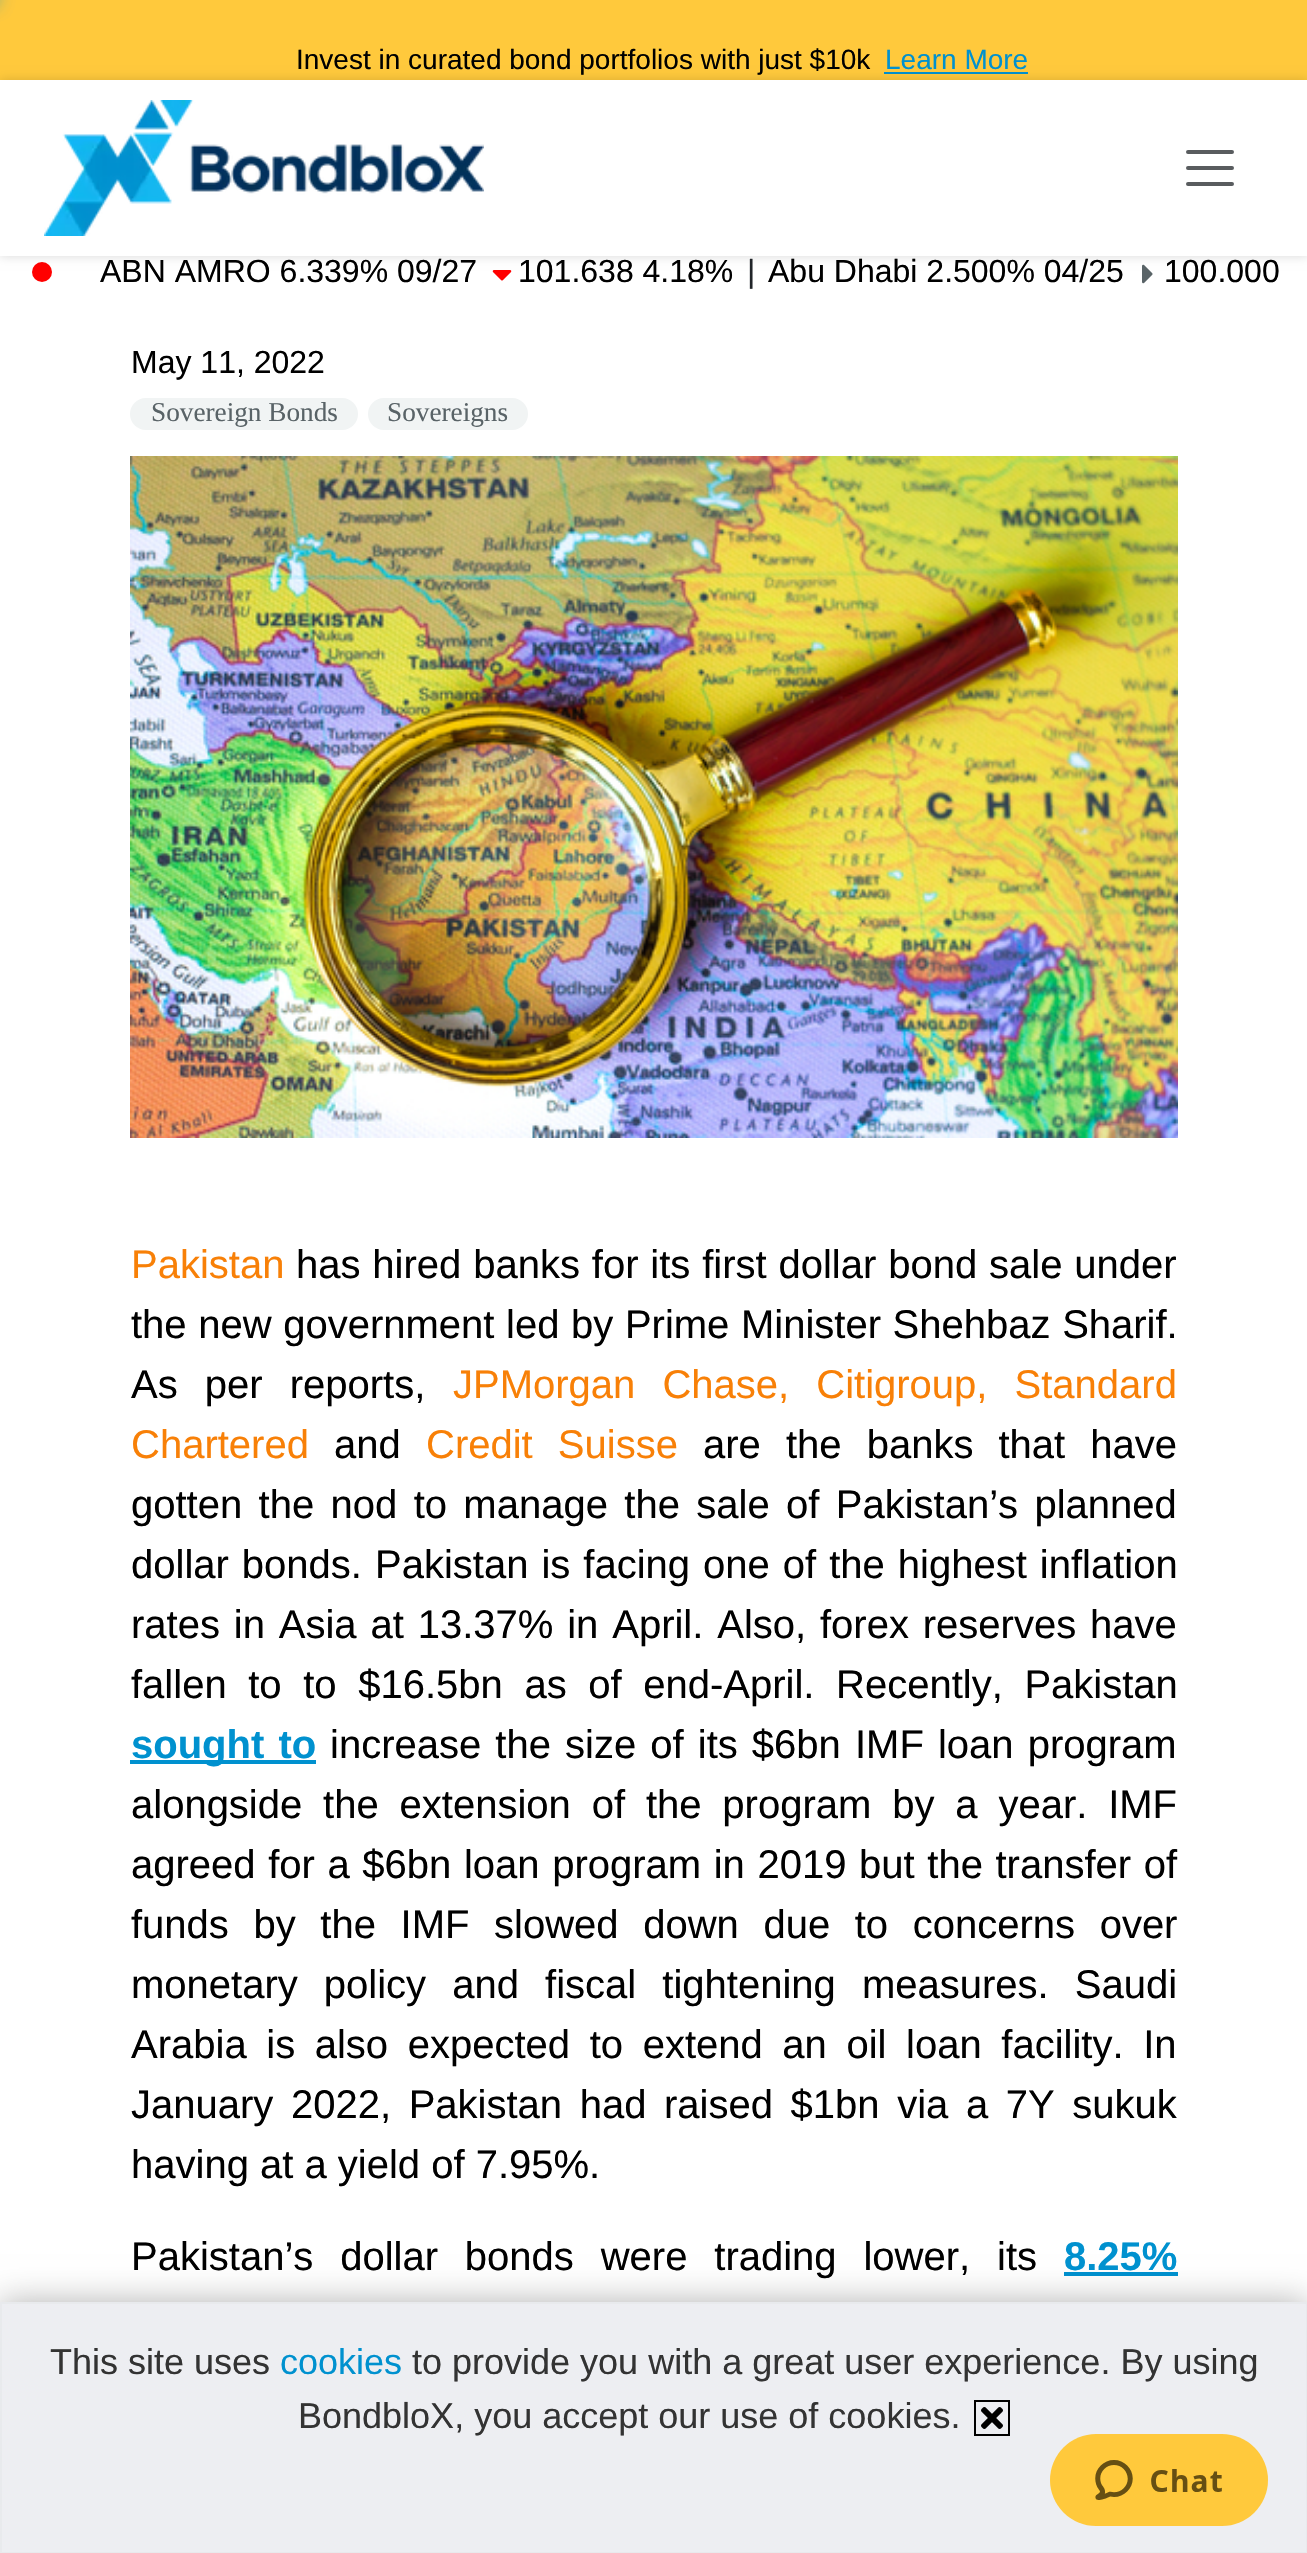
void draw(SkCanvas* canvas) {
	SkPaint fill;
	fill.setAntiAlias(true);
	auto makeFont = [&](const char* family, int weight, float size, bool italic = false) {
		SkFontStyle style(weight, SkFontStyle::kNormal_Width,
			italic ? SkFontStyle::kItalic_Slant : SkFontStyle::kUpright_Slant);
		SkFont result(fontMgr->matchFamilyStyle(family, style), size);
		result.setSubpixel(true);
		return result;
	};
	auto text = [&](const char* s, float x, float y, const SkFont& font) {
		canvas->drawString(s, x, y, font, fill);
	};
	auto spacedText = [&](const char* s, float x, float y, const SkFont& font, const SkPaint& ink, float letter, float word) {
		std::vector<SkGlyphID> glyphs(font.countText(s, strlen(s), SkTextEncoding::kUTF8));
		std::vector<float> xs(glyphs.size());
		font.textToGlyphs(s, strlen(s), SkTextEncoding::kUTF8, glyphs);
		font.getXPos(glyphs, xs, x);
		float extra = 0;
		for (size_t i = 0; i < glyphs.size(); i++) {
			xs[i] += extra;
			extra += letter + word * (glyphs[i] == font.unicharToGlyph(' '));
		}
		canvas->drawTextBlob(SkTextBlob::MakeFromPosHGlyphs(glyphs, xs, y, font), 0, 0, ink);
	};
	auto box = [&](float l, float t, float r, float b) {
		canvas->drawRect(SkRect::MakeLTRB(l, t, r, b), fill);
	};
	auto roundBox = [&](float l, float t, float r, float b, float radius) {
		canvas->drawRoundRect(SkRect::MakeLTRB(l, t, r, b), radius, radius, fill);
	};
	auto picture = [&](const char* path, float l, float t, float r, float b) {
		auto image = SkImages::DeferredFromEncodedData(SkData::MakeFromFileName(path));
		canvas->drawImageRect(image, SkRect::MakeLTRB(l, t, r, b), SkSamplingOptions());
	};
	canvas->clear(0xFFFFFFFF);
	fill.setColor(0xFFFFC93C);
	box(0, 0, 1307, 80);
	fill.setColor(0xFF0091CF);
	fill.setMaskFilter(SkMaskFilter::MakeBlur(kNormal_SkBlurStyle, 10));
	canvas->drawRect(SkRect::MakeLTRB(-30, -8, -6, 0), fill);
	fill.setMaskFilter(nullptr);
	fill.setMaskFilter(SkMaskFilter::MakeBlur(kNormal_SkBlurStyle, 10));
	canvas->drawRect(SkRect::MakeLTRB(-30, -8, -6, 0), fill);
	fill.setMaskFilter(nullptr);
	box(884, 72, 1028, 74);
	fill.setColor(0xFFFF0000);
	canvas->drawCircle(42, 272, 10, fill);
	picture("image1.png", 492, 270, 512, 281);
	picture("image2.png", 1142, 264, 1153, 284);
	fill.setColor(0x26000000);
	fill.setMaskFilter(SkMaskFilter::MakeBlur(kNormal_SkBlurStyle, 5));
	canvas->drawRect(SkRect::MakeLTRB(0, 80, 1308, 256), fill);
	fill.setMaskFilter(nullptr);
	fill.setColor(0xFFFFFFFF);
	box(0, 80, 1307, 256);
	picture("image0.png", 44, 100, 484, 236);
	fill.setStyle(SkPaint::kStroke_Style);
	fill.setStrokeWidth(4);
	fill.setStrokeCap(SkPaint::kRound_Cap);
	fill.setColor(0xFF595C5F);
	canvas->drawPath(SkPathBuilder().moveTo(1188, 152).lineTo(1232, 152).moveTo(1188, 168).lineTo(1232, 168).moveTo(1188, 184).lineTo(1232, 184).detach(), fill);
	fill.setStyle(SkPaint::kFill_Style);
	fill.setColor(0xFF0091CF);
	box(1064, 2272, 1178, 2276);
	fill.setColor(0x4D000000);
	fill.setMaskFilter(SkMaskFilter::MakeBlur(kNormal_SkBlurStyle, 16));
	canvas->drawRect(SkRect::MakeLTRB(0, 2302, 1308, 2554), fill);
	fill.setMaskFilter(nullptr);
	fill.setColor(0xFFEDEEF2);
	canvas->drawRect(SkRect::MakeLTRB(1, 2303, 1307, 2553), fill);
	fill.setStyle(SkPaint::kStroke_Style);
	fill.setStrokeWidth(2);
	fill.setStrokeCap(SkPaint::kButt_Cap);
	fill.setColor(0xFFE8EAED);
	canvas->drawRect(SkRect::MakeLTRB(1, 2303, 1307, 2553), fill);
	fill.setColor(0xFF000000);
	canvas->drawRect(SkRect::MakeLTRB(975, 2401, 1009, 2435), fill);
	picture("image3.png", 981, 2407, 1003, 2429);
	fill.setStyle(SkPaint::kFill_Style);
	fill.setColor(0xFFF1F4F4);
	roundBox(130, 398, 358, 430, 16);
	roundBox(368, 398, 528, 430, 16);
	picture("image4.png", 130, 456, 1178, 1138);
	fill.setColor(0xFF0091CF);
	box(130, 1760, 316, 1764);
	picture("image5.png", 1050, 2434, 1268, 2526);
	auto font1 = makeFont("Liberation Sans", 400, 28);
	fill.setColor(0xFF000000);
	text("Invest in curated bond portfolios with just $10k", 296, 69, font1);
	fill.setColor(0xFF0091CF);
	text("Learn More", 885, 69, font1);
	auto font2 = makeFont("Liberation Sans", 400, 32);
	fill.setColor(0xFF000000);
	text("ABN AMRO 6.339% 09/27", 100, 282, font2);
	text("101.638 4.18%", 518, 282, font2);
	fill.setColor(0xFF212529);
	text("|", 747, 282, font2);
	fill.setColor(0xFF000000);
	text("Abu Dhabi 2.500% 04/25", 768, 282, font2);
	text("100.000", 1164, 282, font2);
	auto font3 = makeFont("Liberation Sans", 400, 36);
	fill.setColor(0xFF333333);
	text("This site uses", 50, 2374, font3);
	fill.setColor(0xFF0091CF);
	text("cookies", 280, 2374, font3);
	fill.setColor(0xFF333333);
	text("to provide you with a great user experience. By using", 412, 2374, font3);
	text("BondbloX, you accept our use of cookies.", 298, 2428, font3);
	fill.setColor(0xFF000000);
	text("May 11, 2022", 131, 373, font2);
	auto font4 = makeFont("Liberation Serif", 400, 27.25f);
	fill.setColor(0xFF596367);
	text("Sovereign Bonds", 151, 421, font4);
	text("Sovereigns", 387, 421, font4);
	auto font5 = makeFont("Liberation Sans", 400, 40);
	fill.setColor(0xFFF88007);
	text("Pakistan", 131, 1278, font5);
	fill.setColor(0xFF000000);
	spacedText("has hired banks for its first dollar bond sale under", 296, 1278, font5, fill, 0, 0.75f);
	spacedText("the new government led by Prime Minister Shehbaz Sharif.", 131, 1338, font5, fill, 0, 0.5f);
	spacedText("As per reports,", 131, 1398, font5, fill, 0, 16);
	fill.setColor(0xFFF88007);
	spacedText("JPMorgan Chase, Citigroup, Standard", 453, 1398, font5, fill, 0, 16);
	text("Chartered", 131, 1458, font5);
	fill.setColor(0xFF000000);
	text("and", 334, 1458, font5);
	fill.setColor(0xFFF88007);
	spacedText("Credit Suisse", 426, 1458, font5, fill, 0, 14);
	fill.setColor(0xFF000000);
	spacedText("are the banks that have", 703, 1458, font5, fill, 0, 14);
	spacedText("gotten the nod to manage the sale of Pakistan’s planned", 131, 1518, font5, fill, 0, 5.25f);
	spacedText("dollar bonds. Pakistan is facing one of the highest inflation", 131, 1578, font5, fill, 0, 1.9f);
	spacedText("rates in Asia at 13.37% in April. Also, forex reserves", 131, 1638, font5, fill, 0, 2.75f);
	text("have", 1090, 1638, font5);
	spacedText("fallen to to $16.5bn as of end-April. Recently, Pakistan", 131, 1698, font5, fill, 0, 10.5f);
	auto font6 = makeFont("Liberation Sans", 700, 40);
	fill.setColor(0xFF0091CF);
	spacedText("sought to", 131, 1758, font6, fill, 0, 3);
	fill.setColor(0xFF000000);
	spacedText("increase the size of its $6bn IMF loan program", 330, 1758, font5, fill, 0, 3);
	spacedText("alongside the extension of the program by a year. IMF", 131, 1818, font5, fill, 0, 9.75f);
	spacedText("agreed for a $6bn loan program in 2019 but the transfer of", 131, 1878, font5, fill, 0, 1.5f);
	spacedText("funds by the IMF slowed down due to concerns over", 131, 1938, font5, fill, 0, 13.5f);
	spacedText("monetary policy and fiscal tightening measures. Saudi", 131, 1998, font5, fill, 0, 15);
	spacedText("Arabia is also expected to extend an oil loan facility. In", 131, 2058, font5, fill, 0, 8.5f);
	spacedText("January 2022, Pakistan had raised $1bn via a 7Y sukuk", 131, 2118, font5, fill, 0, 6.5f);
	text("having at a yield of 7.95%.", 131, 2178, font5);
	spacedText("Pakistan’s dollar bonds were trading lower, i", 131, 2270, font5, fill, 0, 15.75f);
	text("ts", 1006, 2270, font5);
	fill.setColor(0xFF0091CF);
	text("8.25%", 1064, 2270, font6);
}
